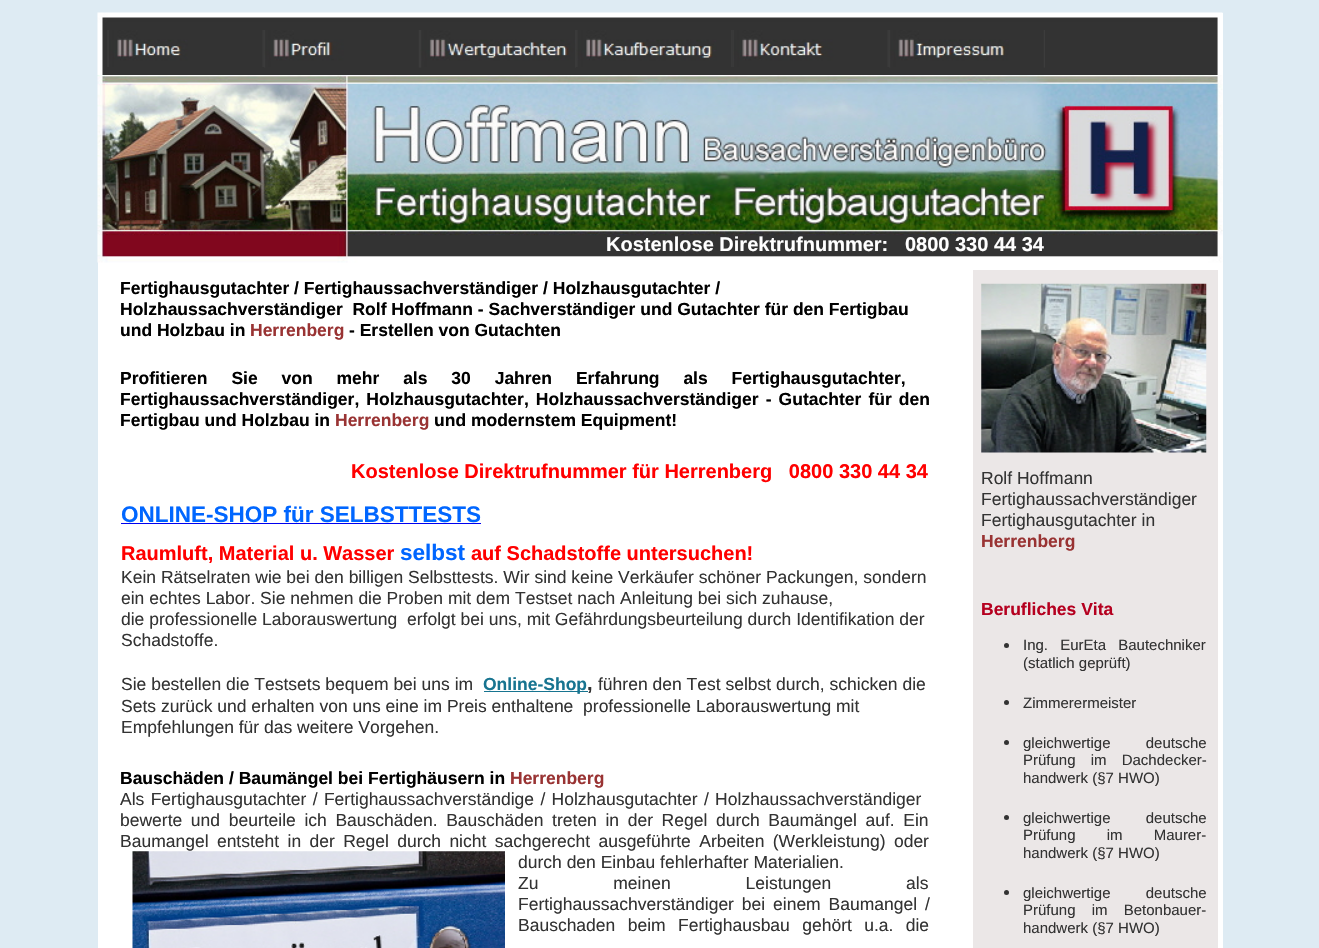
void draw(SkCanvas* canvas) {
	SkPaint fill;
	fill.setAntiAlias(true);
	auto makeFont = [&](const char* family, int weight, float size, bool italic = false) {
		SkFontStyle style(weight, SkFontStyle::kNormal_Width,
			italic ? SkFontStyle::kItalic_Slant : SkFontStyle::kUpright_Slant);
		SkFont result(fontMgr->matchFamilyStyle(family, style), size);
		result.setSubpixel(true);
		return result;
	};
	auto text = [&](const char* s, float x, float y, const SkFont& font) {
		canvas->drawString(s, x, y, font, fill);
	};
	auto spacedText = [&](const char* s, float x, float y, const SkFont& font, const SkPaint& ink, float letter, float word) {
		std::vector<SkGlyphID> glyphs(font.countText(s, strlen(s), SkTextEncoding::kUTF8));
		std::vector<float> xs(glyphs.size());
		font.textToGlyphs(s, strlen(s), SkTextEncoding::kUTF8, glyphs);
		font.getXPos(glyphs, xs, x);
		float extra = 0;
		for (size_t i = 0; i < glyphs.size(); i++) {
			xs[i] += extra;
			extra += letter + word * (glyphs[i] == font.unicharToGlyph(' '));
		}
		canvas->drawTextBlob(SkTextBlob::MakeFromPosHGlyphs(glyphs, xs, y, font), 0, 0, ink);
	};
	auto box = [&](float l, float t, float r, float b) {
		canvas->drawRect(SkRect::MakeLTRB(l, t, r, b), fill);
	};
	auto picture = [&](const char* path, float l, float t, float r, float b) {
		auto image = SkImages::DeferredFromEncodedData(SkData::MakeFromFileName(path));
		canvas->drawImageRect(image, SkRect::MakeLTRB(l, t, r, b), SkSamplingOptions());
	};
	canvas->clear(0xFFDEEBF3);
	fill.setColor(0xFFFFFFFF);
	box(98, 13, 1223, 948);
	picture("image6.png", 97, 12, 1223, 75);
	picture("image0.png", 107, 30, 264, 67);
	picture("image1.png", 264, 30, 420, 68);
	picture("image2.png", 420, 30, 576, 68);
	picture("image3.png", 576, 30, 733, 67);
	picture("image4.png", 733, 30, 889, 67);
	picture("image5.png", 889, 30, 1045, 68);
	picture("image7.png", 97, 75, 1223, 263);
	fill.setColor(0xFF0000EE);
	box(121, 523, 481, 524);
	fill.setColor(0xFFEBE7E7);
	box(973, 270, 1218, 948);
	picture("image8.png", 981, 283, 1207, 453);
	fill.setColor(0xFF333333);
	canvas->drawCircle(1006.5f, 645.5f, 2.5f, fill);
	canvas->drawCircle(1006.5f, 702.5f, 2.5f, fill);
	canvas->drawCircle(1006.5f, 742.5f, 2.5f, fill);
	canvas->drawCircle(1006.5f, 817.5f, 2.5f, fill);
	canvas->drawCircle(1006.5f, 892.5f, 2.5f, fill);
	fill.setColor(0xFF177490);
	box(484, 691, 588, 692);
	picture("image9.png", 132, 851, 505, 948);
	auto font1 = makeFont("Liberation Sans", 700, 20);
	fill.setColor(0xFFFFFFFF);
	text("Kostenlose Direktrufnummer:   0800 330 44 34", 606, 251, font1);
	auto font2 = makeFont("Liberation Sans", 700, 17.5f);
	fill.setColor(0xFF000000);
	text("Fertighausgutachter / Fertighaussachverständiger / Holzhausgutachter /", 120, 294, font2);
	text("Holzhaussachverständiger  Rolf Hoffmann - Sachverständiger und Gutachter für den Fertigbau", 120, 315, font2);
	text("und Holzbau in", 120, 336, font2);
	fill.setColor(0xFF993333);
	text("Herrenberg", 250, 336, font2);
	fill.setColor(0xFF000000);
	text("- Erstellen von Gutachten", 349, 336, font2);
	spacedText("Profitieren Sie von mehr als 30 Jahren Erfahrung als Fertighausgutachter,", 120, 384, font2, fill, 0, 19);
	spacedText("Fertighaussachverständiger, Holzhausgutachter, Holzhaussachverständiger - Gutachter für den", 120, 405, font2, fill, 0, 2.25f);
	text("Fertigbau und Holzbau in", 120, 426, font2);
	fill.setColor(0xFF993333);
	text("Herrenberg", 335, 426, font2);
	fill.setColor(0xFF000000);
	text("und modernstem Equipment!", 434, 426, font2);
	auto font3 = makeFont("Liberation Sans", 700, 22.5f);
	fill.setColor(0xFF0066FF);
	text("ONLINE-SHOP für SELBSTTESTS", 121, 522, font3);
	fill.setColor(0xFFFF0000);
	text("Kostenlose Direktrufnummer für Herrenberg   0800 330 44 34", 351, 478, font1);
	auto font4 = makeFont("Liberation Sans", 400, 17.5f);
	fill.setColor(0xFF333333);
	text("Rolf Hoffmann", 981, 484, font4);
	text("Fertighaussachverständiger", 981, 505, font4);
	text("Fertighausgutachter in", 981, 526, font4);
	fill.setColor(0xFF993333);
	text("Herrenberg", 981, 547, font2);
	fill.setColor(0xFFB5001F);
	text("Berufliches Vita", 981, 615, font2);
	auto font5 = makeFont("Liberation Sans", 400, 15);
	fill.setColor(0xFF333333);
	spacedText("Ing. EurEta Bautechniker", 1023, 650, font5, fill, 0, 8);
	text("(statlich geprüft)", 1023, 668, font5);
	text("Zimmerermeister", 1023, 708, font5);
	spacedText("gleichwertige deutsche", 1023, 748, font5, fill, 0, 31);
	spacedText("Prüfung im Dachdecker-", 1023, 765, font5, fill, 0, 11);
	text("handwerk (§7 HWO)", 1023, 783, font5);
	spacedText("gleichwertige deutsche", 1023, 823, font5, fill, 0, 31);
	spacedText("Prüfung im Maurer-", 1023, 840, font5, fill, 0, 27);
	text("handwerk (§7 HWO)", 1023, 858, font5);
	spacedText("gleichwertige deutsche", 1023, 898, font5, fill, 0, 31);
	spacedText("Prüfung im Betonbauer-", 1023, 915, font5, fill, 0, 12);
	text("handwerk (§7 HWO)", 1023, 933, font5);
	fill.setColor(0xFFFF0000);
	text("Raumluft, Material u. Wasser", 121, 560, font1);
	fill.setColor(0xFF0066FF);
	text("selbst", 400, 560, font3);
	fill.setColor(0xFFFF0000);
	text("auf Schadstoffe untersuchen!", 471, 560, font1);
	fill.setColor(0xFF333333);
	text("Kein Rätselraten wie bei den billigen Selbsttests. Wir sind keine Verkäufer schöner Packungen, sondern", 121, 583, font4);
	text("ein echtes Labor. Sie nehmen die Proben mit dem Testset nach Anleitung bei sich zuhause,", 121, 604, font4);
	text("die professionelle Laborauswertung  erfolgt bei uns, mit Gefährdungsbeurteilung durch Identifikation der", 121, 625, font4);
	text("Schadstoffe.", 121, 646, font4);
	text("Sie bestellen die Testsets bequem bei uns im", 121, 690, font4);
	fill.setColor(0xFF177490);
	text("Online-Shop", 483, 690, font2);
	fill.setColor(0xFF333333);
	text(",", 587, 690, font1);
	text("führen den Test selbst durch, schicken die", 598, 690, font4);
	text("Sets zurück und erhalten von uns eine im Preis enthaltene  professionelle Laborauswertung mit", 121, 712, font4);
	text("Empfehlungen für das weitere Vorgehen.", 121, 733, font4);
	fill.setColor(0xFF000000);
	text("Bauschäden / Baumängel bei Fertighäusern in", 120, 784, font2);
	fill.setColor(0xFF993333);
	text("Herrenberg", 510, 784, font2);
	fill.setColor(0xFF333333);
	spacedText("Als Fertighausgutachter / Fertighaussachverständige / Holzhausgutachter / Holzhaussachverständiger", 120, 805, font4, fill, 0, 1.5f);
	spacedText("bewerte und beurteile ich Bauschäden. Bauschäden treten in der Regel durch Baumängel auf. Ein", 120, 826, font4, fill, 0, 3.75f);
	spacedText("Baumangel entsteht in der Regel durch nicht sachgerecht ausgeführte Arbeiten (Werkleistung) oder", 120, 847, font4, fill, 0, 3.5f);
	text("durch den Einbau fehlerhafter Materialien.", 518, 868, font4);
	spacedText("Zu meinen Leistungen als", 518, 889, font4, fill, 0, 70);
	spacedText("Fertighaussachverständiger bei einem Baumangel /", 518, 910, font4, fill, 0, 3);
	spacedText("Bauschaden beim Fertighausbau gehört u.a. die", 518, 931, font4, fill, 0, 7.5f);
}
